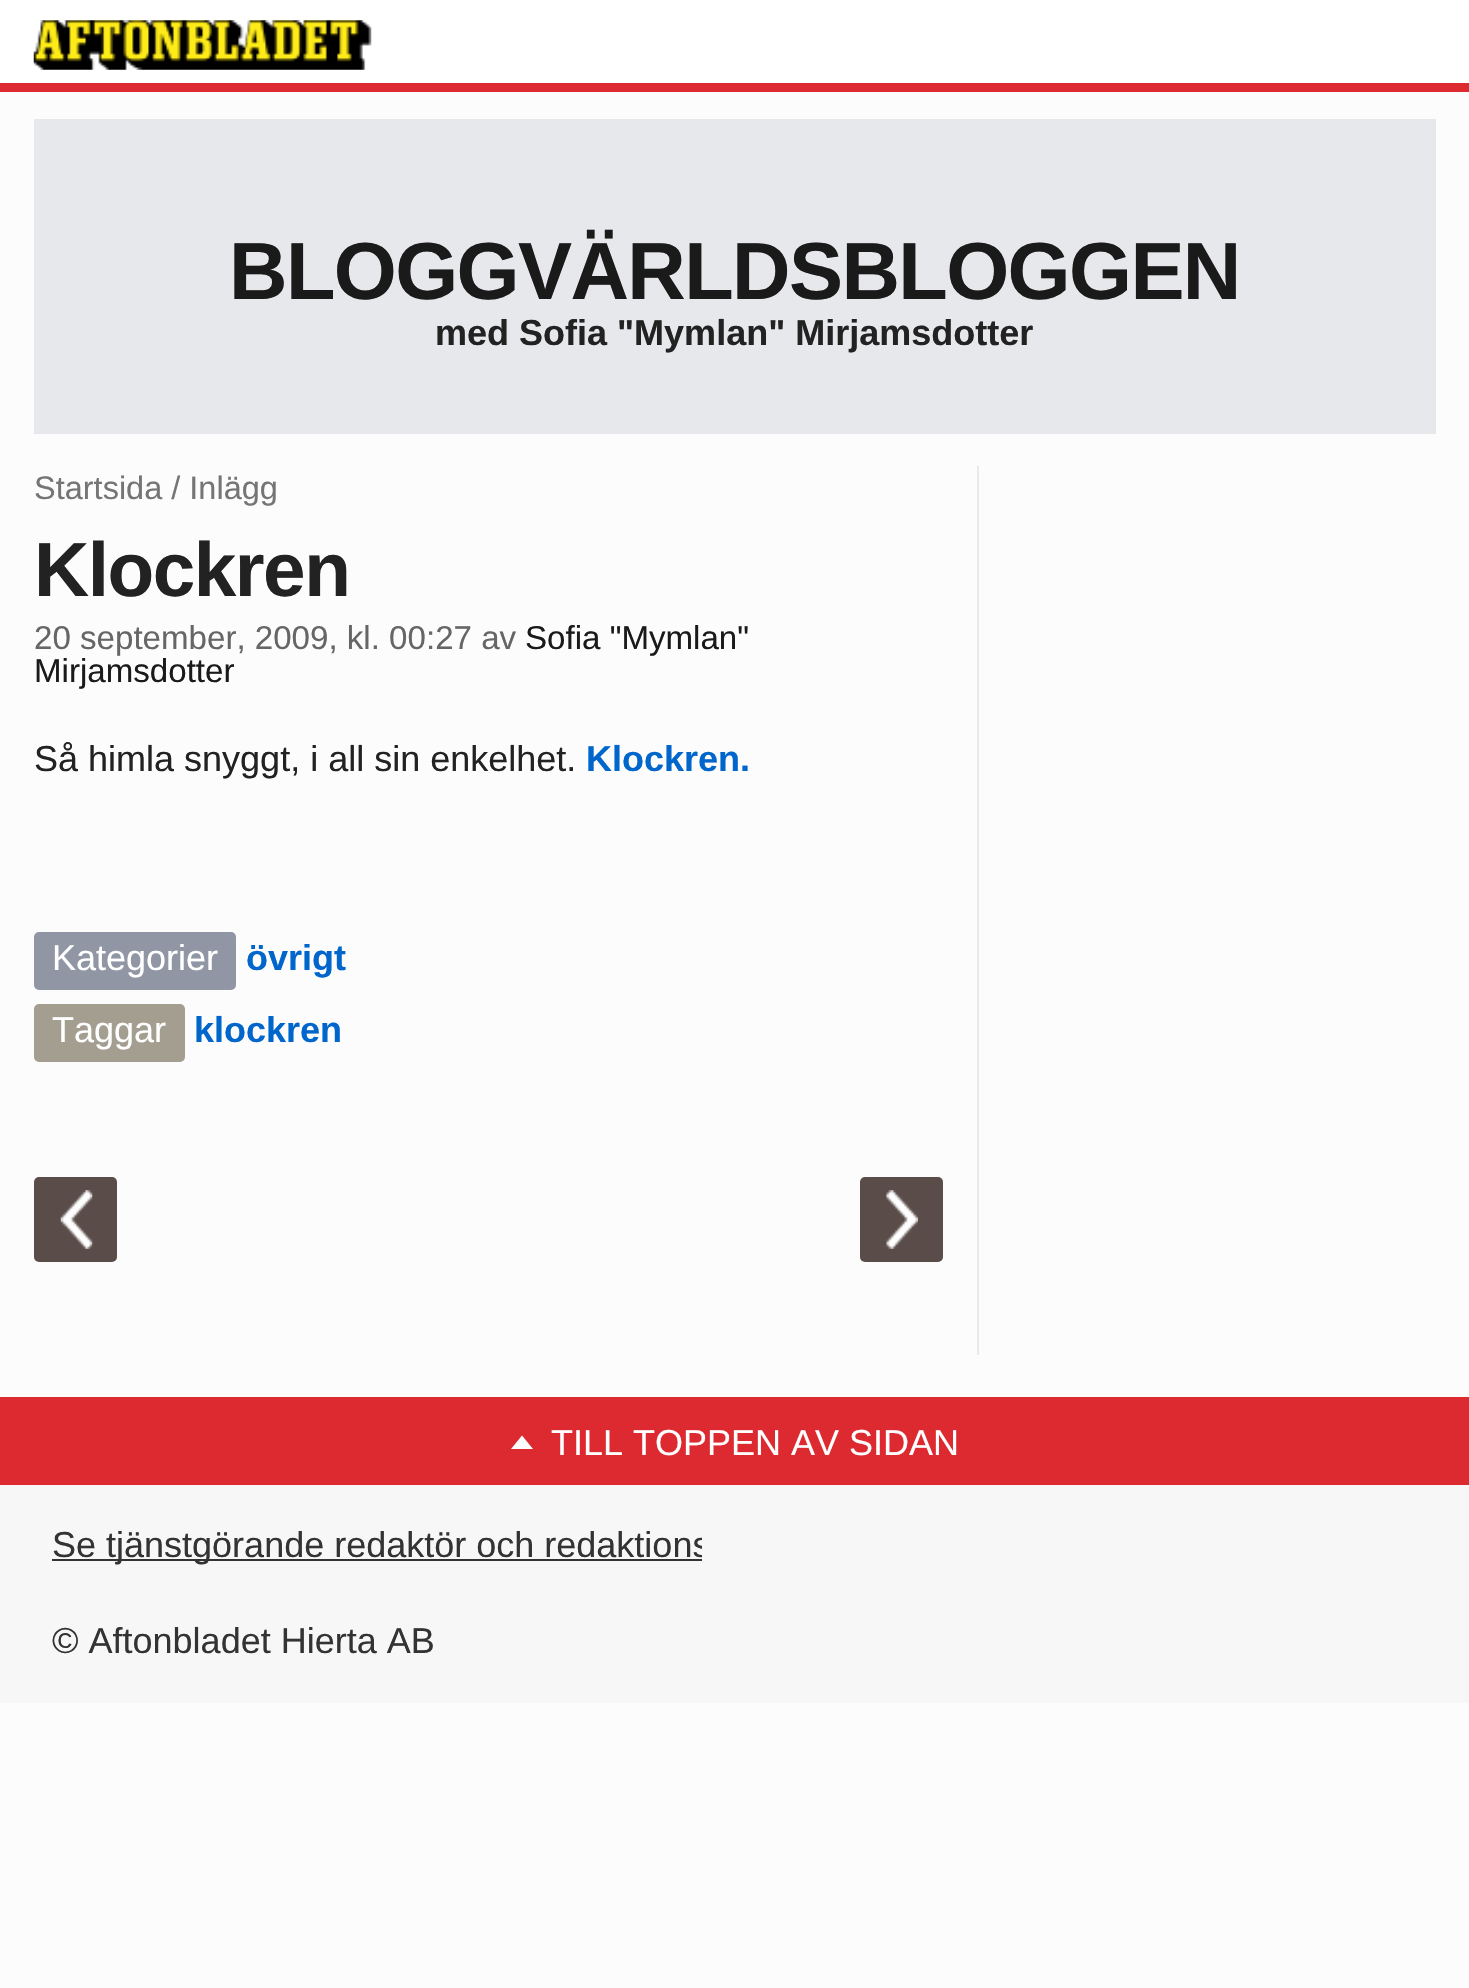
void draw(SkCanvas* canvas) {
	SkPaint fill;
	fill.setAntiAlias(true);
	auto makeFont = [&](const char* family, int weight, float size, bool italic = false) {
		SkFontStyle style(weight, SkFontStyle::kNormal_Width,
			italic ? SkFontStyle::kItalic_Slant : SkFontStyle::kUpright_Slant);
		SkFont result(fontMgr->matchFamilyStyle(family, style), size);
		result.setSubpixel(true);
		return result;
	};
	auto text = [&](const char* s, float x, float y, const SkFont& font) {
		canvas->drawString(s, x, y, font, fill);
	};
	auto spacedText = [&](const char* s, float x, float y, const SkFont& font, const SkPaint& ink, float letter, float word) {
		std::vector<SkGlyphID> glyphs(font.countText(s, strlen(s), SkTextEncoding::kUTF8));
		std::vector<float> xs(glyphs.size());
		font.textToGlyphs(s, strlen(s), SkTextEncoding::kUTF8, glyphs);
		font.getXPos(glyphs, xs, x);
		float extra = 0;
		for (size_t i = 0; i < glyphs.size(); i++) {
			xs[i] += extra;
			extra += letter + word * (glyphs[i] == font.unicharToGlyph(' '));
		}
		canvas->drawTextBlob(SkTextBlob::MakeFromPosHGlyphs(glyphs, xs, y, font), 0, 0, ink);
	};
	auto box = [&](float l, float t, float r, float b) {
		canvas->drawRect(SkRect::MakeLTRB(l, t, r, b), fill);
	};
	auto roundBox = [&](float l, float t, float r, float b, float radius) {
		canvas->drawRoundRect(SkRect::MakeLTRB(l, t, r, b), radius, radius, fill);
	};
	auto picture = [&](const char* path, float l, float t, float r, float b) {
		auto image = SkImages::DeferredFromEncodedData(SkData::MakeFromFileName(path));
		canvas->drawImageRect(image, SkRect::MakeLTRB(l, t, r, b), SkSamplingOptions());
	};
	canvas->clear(0xFFFCFCFC);
	fill.setColor(0xFFFFFFFF);
	box(0, 0, 1469, 83);
	fill.setColor(0xFFDD2A30);
	box(0, 83, 1469, 92);
	picture("image0.png", 33, 20, 372, 70);
	fill.setColor(0xFFE7E8EB);
	box(34, 119, 1436, 434);
	fill.setColor(0xFFE9E9E9);
	box(977, 466, 979, 1355);
	fill.setColor(0xFF9096A4);
	roundBox(34, 932, 236, 990, 5);
	fill.setColor(0xFFA49E90);
	roundBox(34, 1004, 185, 1062, 5);
	fill.setColor(0xFF594C49);
	roundBox(34, 1177, 117, 1262, 5);
	picture("image1.png", 60, 1190, 93, 1249);
	roundBox(860, 1177, 943, 1262, 5);
	picture("image2.png", 886, 1190, 918, 1249);
	fill.setColor(0xFFDD2A30);
	box(0, 1397, 1469, 1485);
	fill.setColor(0xFFFCFCFC);
	canvas->drawPath(SkPathBuilder().moveTo(533, 1449).lineTo(511, 1449).lineTo(522, 1435.5f).close().detach(), fill);
	fill.setColor(0xFFF7F7F7);
	box(0, 1485, 1469, 1703);
	fill.setColor(0xFF333333);
	box(52, 1559, 702, 1561);
	auto font1 = makeFont("Liberation Sans", 700, 81);
	fill.setColor(0xFF1A1A1A);
	spacedText("BLOGGVÄRLDSBLOGGEN", 229, 299, font1, fill, -1.6f, 0);
	auto font2 = makeFont("Liberation Sans", 700, 36);
	fill.setColor(0xFF222222);
	text("med Sofia \"Mymlan\" Mirjamsdotter", 435, 345, font2);
	auto font3 = makeFont("Liberation Sans", 400, 32.5f);
	fill.setColor(0xFF757575);
	text("Startsida / Inlägg", 34, 499, font3);
	auto font4 = makeFont("Liberation Sans", 700, 76.5f);
	fill.setColor(0xFF222222);
	spacedText("Klockren", 34, 596, font4, fill, -1.5f, 0);
	auto font5 = makeFont("Liberation Sans", 400, 33.1f);
	fill.setColor(0xFF666666);
	text("20 september, 2009, kl. 00:27 av", 34, 649, font5);
	fill.setColor(0xFF1A1A1A);
	text("Sofia \"Mymlan\"", 525, 649, font5);
	text("Mirjamsdotter", 34, 682, font5);
	auto font6 = makeFont("Liberation Sans", 400, 36);
	fill.setColor(0xFF222222);
	text("Så himla snyggt, i all sin enkelhet.", 34, 771, font6);
	fill.setColor(0xFF0066CC);
	text("Klockren.", 586, 771, font2);
	fill.setColor(0xFFFFFFFF);
	text("Kategorier", 52, 970, font6);
	fill.setColor(0xFF0066CC);
	text("övrigt", 246, 970, font2);
	fill.setColor(0xFFFFFFFF);
	text("Taggar", 52, 1042, font6);
	fill.setColor(0xFF0066CC);
	text("klockren", 194, 1042, font2);
	fill.setColor(0xFFFFFFFF);
	text("TILL TOPPEN AV SIDAN", 551, 1455, font6);
	canvas->save();
	canvas->clipRect(SkRect::MakeLTRB(52, 1521, 702, 1573));
	fill.setColor(0xFF333333);
	text("Se tjänstgörande redaktör och redaktions", 52, 1557, font6);
	canvas->restore();
	text("© Aftonbladet Hierta AB", 52, 1653, font6);
}
